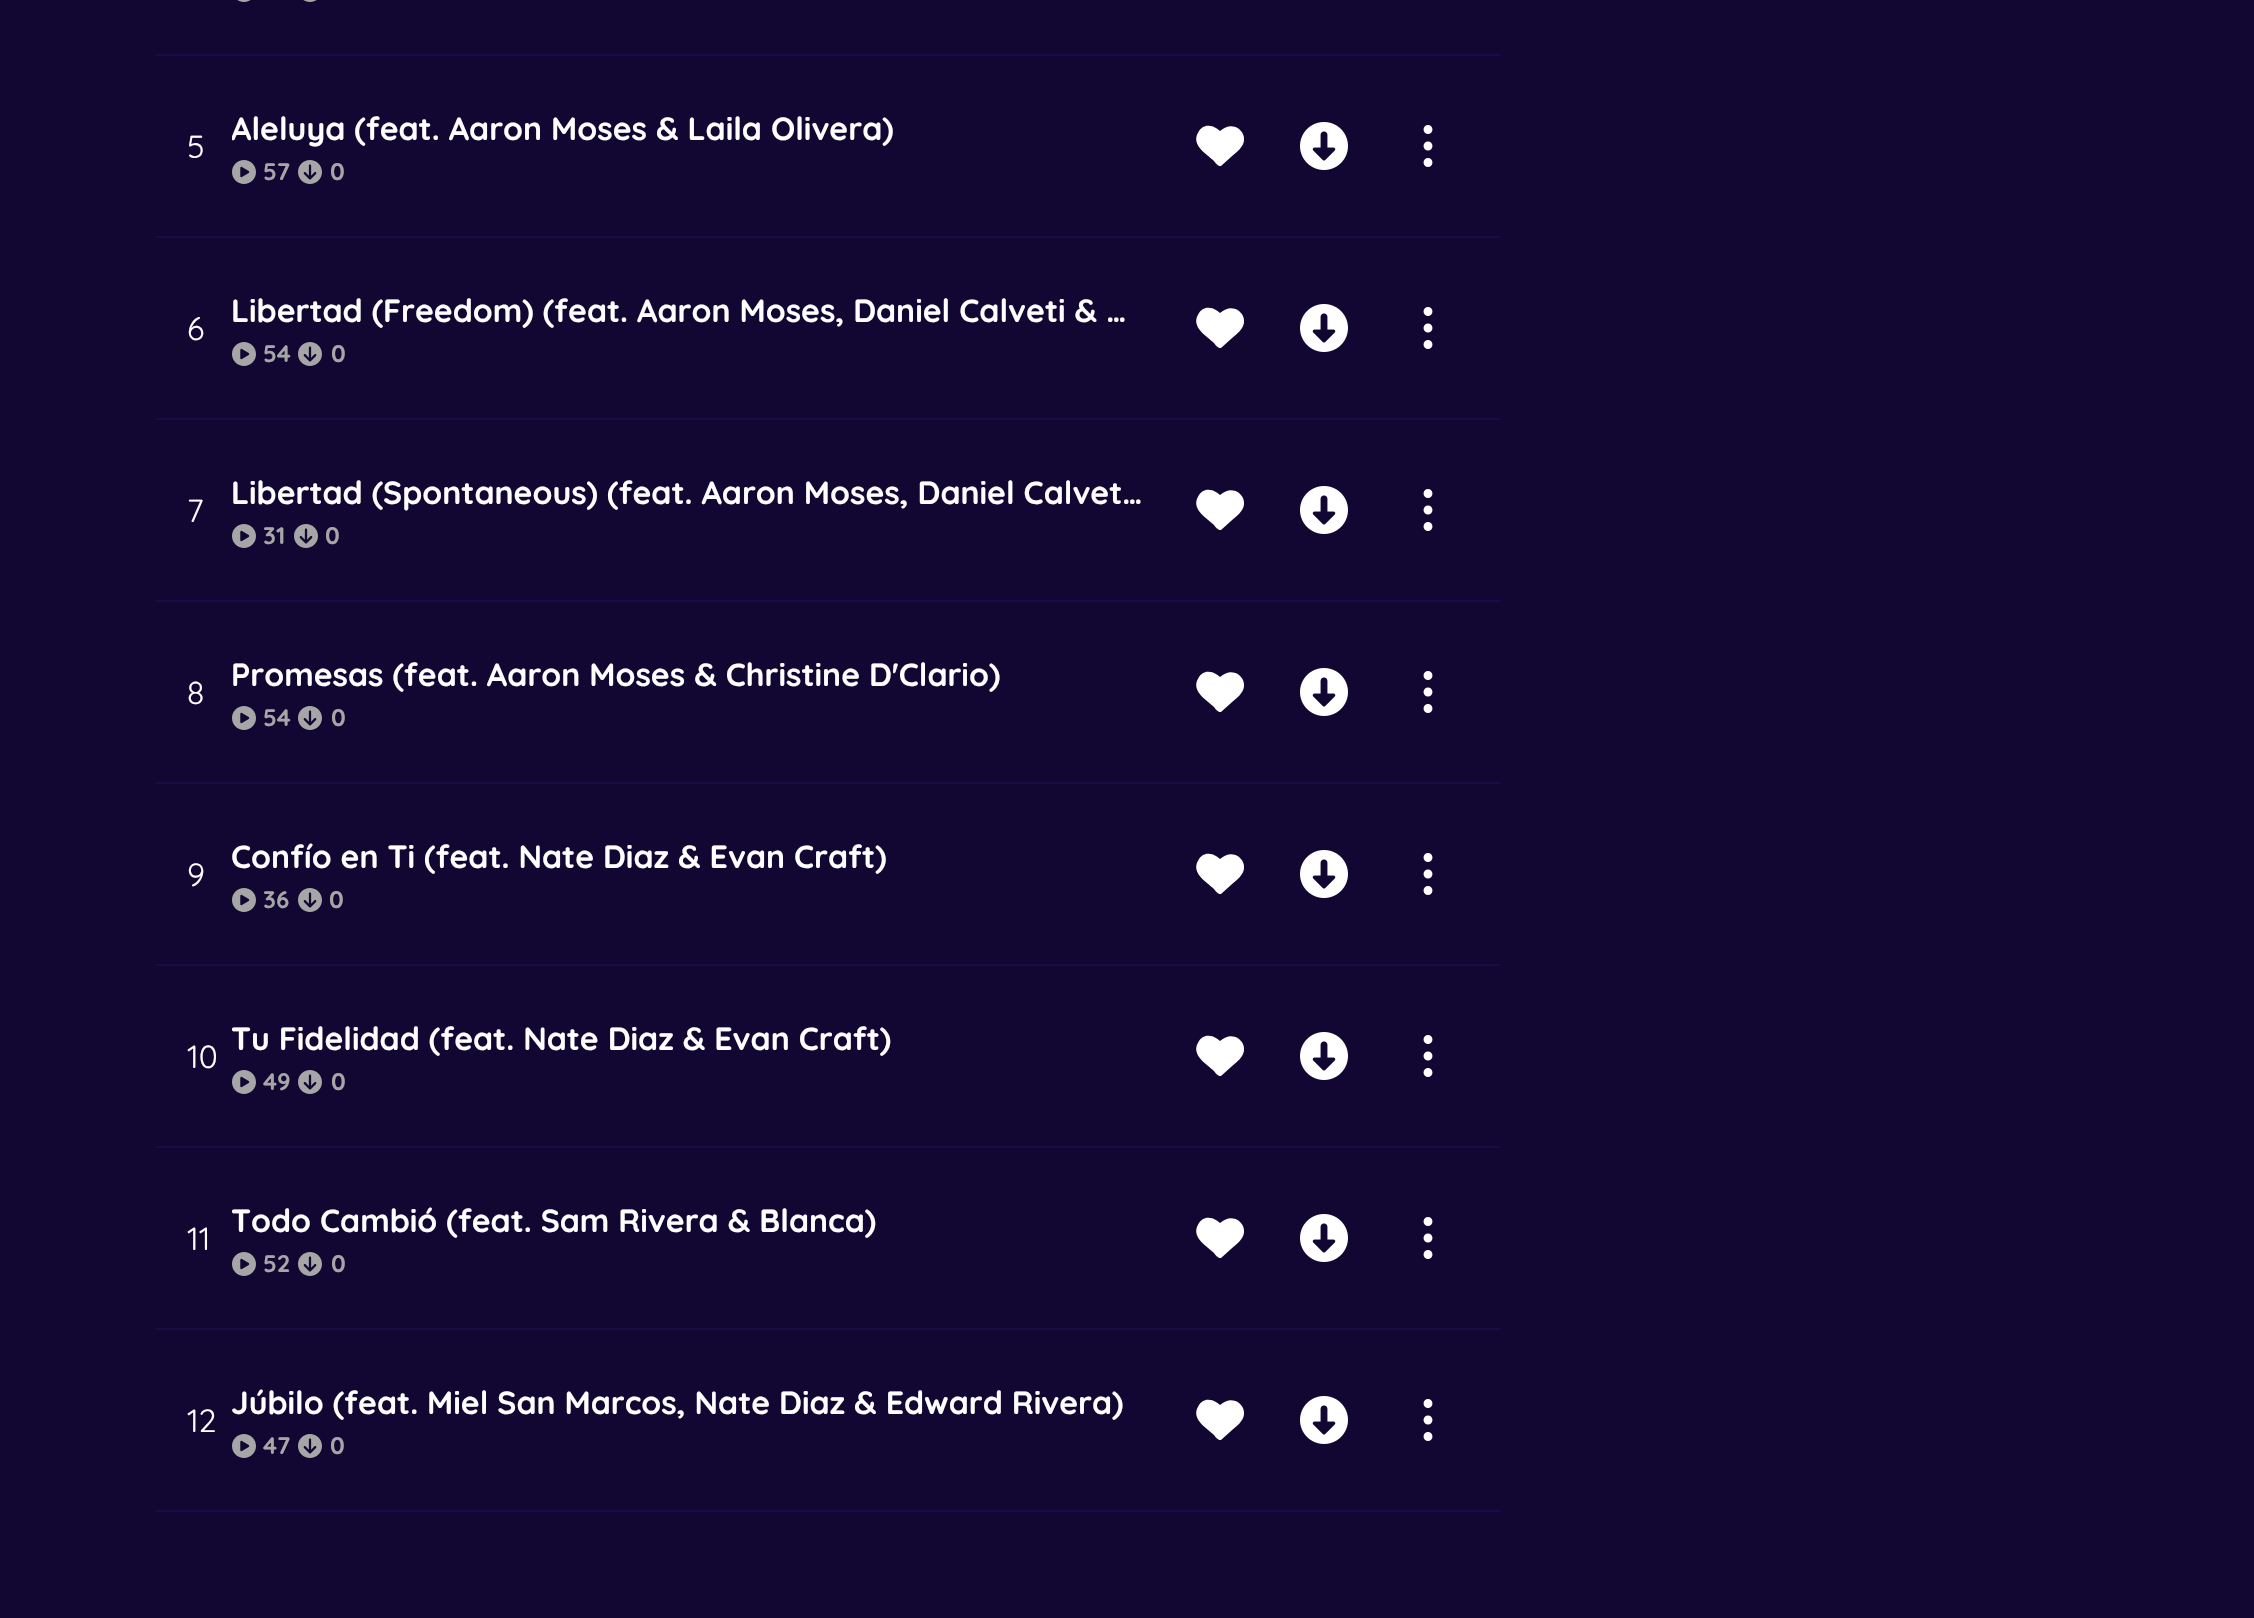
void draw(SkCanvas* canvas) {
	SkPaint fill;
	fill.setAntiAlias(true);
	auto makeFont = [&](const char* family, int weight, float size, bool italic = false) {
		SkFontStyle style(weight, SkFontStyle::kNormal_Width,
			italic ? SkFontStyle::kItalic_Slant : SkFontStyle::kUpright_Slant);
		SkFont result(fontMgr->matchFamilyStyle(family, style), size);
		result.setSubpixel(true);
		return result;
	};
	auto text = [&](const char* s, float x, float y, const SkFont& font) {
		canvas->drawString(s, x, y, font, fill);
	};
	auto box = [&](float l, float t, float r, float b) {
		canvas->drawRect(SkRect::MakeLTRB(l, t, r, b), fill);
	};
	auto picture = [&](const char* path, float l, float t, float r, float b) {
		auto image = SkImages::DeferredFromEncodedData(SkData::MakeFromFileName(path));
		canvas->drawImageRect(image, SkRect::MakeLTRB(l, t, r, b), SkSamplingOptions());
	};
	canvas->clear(0xFF120732);
	fill.setColor(0xFF1A0C44);
	box(156, 54, 1500, 56);
	picture("image0.png", 237, 0, 251, 2);
	picture("image0.png", 303, 0, 317, 2);
	box(156, 236, 1500, 238);
	picture("image1.png", 232, 160, 256, 184);
	picture("image2.png", 298, 160, 322, 184);
	fill.setColor(0xFFFFFFFF);
	canvas->drawPath(SkPathBuilder(SkPathFillType::kEvenOdd).moveTo(1210, 126).cubicTo(1213, 126, 1217, 128, 1220, 131).cubicTo(1234, 118, 1250, 134, 1242, 146).cubicTo(1239, 151, 1234, 154, 1231, 157).lineTo(1221, 166).cubicTo(1218, 167, 1214, 161, 1213, 160).cubicTo(1205, 153, 1190, 144, 1199, 131).cubicTo(1201, 128, 1205, 125, 1210, 126).detach(), fill);
	picture("image3.png", 1300, 122, 1348, 170);
	fill.setStyle(SkPaint::kStroke_Style);
	fill.setStrokeWidth(4.5f);
	canvas->drawCircle(1428, 129.5f, 2.2f, fill);
	canvas->drawCircle(1428, 146, 2.2f, fill);
	canvas->drawCircle(1428, 162.5f, 2.2f, fill);
	fill.setStyle(SkPaint::kFill_Style);
	fill.setColor(0xFF1A0C44);
	box(156, 418, 1500, 420);
	picture("image1.png", 232, 342, 256, 366);
	picture("image2.png", 298, 342, 322, 366);
	fill.setColor(0xFFFFFFFF);
	canvas->drawPath(SkPathBuilder(SkPathFillType::kEvenOdd).moveTo(1210, 308).cubicTo(1213, 308, 1217, 310, 1220, 313).cubicTo(1234, 300, 1250, 316, 1242, 328).cubicTo(1239, 333, 1234, 336, 1231, 339).lineTo(1221, 348).cubicTo(1218, 349, 1214, 343, 1213, 342).cubicTo(1205, 335, 1190, 326, 1199, 313).cubicTo(1201, 310, 1205, 307, 1210, 308).detach(), fill);
	picture("image3.png", 1300, 304, 1348, 352);
	fill.setStyle(SkPaint::kStroke_Style);
	canvas->drawCircle(1428, 311.5f, 2.2f, fill);
	canvas->drawCircle(1428, 328, 2.2f, fill);
	canvas->drawCircle(1428, 344.5f, 2.2f, fill);
	fill.setStyle(SkPaint::kFill_Style);
	fill.setColor(0xFF1A0C44);
	box(156, 600, 1500, 602);
	picture("image1.png", 232, 524, 256, 548);
	picture("image2.png", 294, 524, 318, 548);
	fill.setColor(0xFFFFFFFF);
	canvas->drawPath(SkPathBuilder(SkPathFillType::kEvenOdd).moveTo(1210, 490).cubicTo(1213, 490, 1217, 492, 1220, 495).cubicTo(1234, 482, 1250, 498, 1242, 510).cubicTo(1239, 515, 1234, 518, 1231, 521).lineTo(1221, 530).cubicTo(1218, 531, 1214, 525, 1213, 524).cubicTo(1205, 517, 1190, 508, 1199, 495).cubicTo(1201, 492, 1205, 489, 1210, 490).detach(), fill);
	picture("image3.png", 1300, 486, 1348, 534);
	fill.setStyle(SkPaint::kStroke_Style);
	canvas->drawCircle(1428, 493.5f, 2.2f, fill);
	canvas->drawCircle(1428, 510, 2.2f, fill);
	canvas->drawCircle(1428, 526.5f, 2.2f, fill);
	fill.setStyle(SkPaint::kFill_Style);
	fill.setColor(0xFF1A0C44);
	box(156, 782, 1500, 784);
	picture("image1.png", 232, 706, 256, 730);
	picture("image2.png", 298, 706, 322, 730);
	fill.setColor(0xFFFFFFFF);
	canvas->drawPath(SkPathBuilder(SkPathFillType::kEvenOdd).moveTo(1210, 672).cubicTo(1213, 672, 1217, 674, 1220, 677).cubicTo(1234, 664, 1250, 680, 1242, 692).cubicTo(1239, 697, 1234, 700, 1231, 703).lineTo(1221, 712).cubicTo(1218, 713, 1214, 707, 1213, 706).cubicTo(1205, 699, 1190, 690, 1199, 677).cubicTo(1201, 674, 1205, 671, 1210, 672).detach(), fill);
	picture("image3.png", 1300, 668, 1348, 716);
	fill.setStyle(SkPaint::kStroke_Style);
	canvas->drawCircle(1428, 675.5f, 2.2f, fill);
	canvas->drawCircle(1428, 692, 2.2f, fill);
	canvas->drawCircle(1428, 708.5f, 2.2f, fill);
	fill.setStyle(SkPaint::kFill_Style);
	fill.setColor(0xFF1A0C44);
	box(156, 964, 1500, 966);
	picture("image1.png", 232, 888, 256, 912);
	picture("image2.png", 298, 888, 322, 912);
	fill.setColor(0xFFFFFFFF);
	canvas->drawPath(SkPathBuilder(SkPathFillType::kEvenOdd).moveTo(1210, 854).cubicTo(1213, 854, 1217, 856, 1220, 859).cubicTo(1234, 846, 1250, 862, 1242, 874).cubicTo(1239, 879, 1234, 882, 1231, 885).lineTo(1221, 894).cubicTo(1218, 895, 1214, 889, 1213, 888).cubicTo(1205, 881, 1190, 872, 1199, 859).cubicTo(1201, 856, 1205, 853, 1210, 854).detach(), fill);
	picture("image3.png", 1300, 850, 1348, 898);
	fill.setStyle(SkPaint::kStroke_Style);
	canvas->drawCircle(1428, 857.5f, 2.2f, fill);
	canvas->drawCircle(1428, 874, 2.2f, fill);
	canvas->drawCircle(1428, 890.5f, 2.2f, fill);
	fill.setStyle(SkPaint::kFill_Style);
	fill.setColor(0xFF1A0C44);
	box(156, 1146, 1500, 1148);
	picture("image1.png", 232, 1070, 256, 1094);
	picture("image2.png", 298, 1070, 322, 1094);
	fill.setColor(0xFFFFFFFF);
	canvas->drawPath(SkPathBuilder(SkPathFillType::kEvenOdd).moveTo(1210, 1036).cubicTo(1213, 1036, 1217, 1038, 1220, 1041).cubicTo(1234, 1028, 1250, 1044, 1242, 1056).cubicTo(1239, 1061, 1234, 1064, 1231, 1067).lineTo(1221, 1076).cubicTo(1218, 1077, 1214, 1071, 1213, 1070).cubicTo(1205, 1063, 1190, 1054, 1199, 1041).cubicTo(1201, 1038, 1205, 1035, 1210, 1036).detach(), fill);
	picture("image3.png", 1300, 1032, 1348, 1080);
	fill.setStyle(SkPaint::kStroke_Style);
	canvas->drawCircle(1428, 1039.5f, 2.2f, fill);
	canvas->drawCircle(1428, 1056, 2.2f, fill);
	canvas->drawCircle(1428, 1072.5f, 2.2f, fill);
	fill.setStyle(SkPaint::kFill_Style);
	fill.setColor(0xFF1A0C44);
	box(156, 1328, 1500, 1330);
	picture("image1.png", 232, 1252, 256, 1276);
	picture("image2.png", 298, 1252, 322, 1276);
	fill.setColor(0xFFFFFFFF);
	canvas->drawPath(SkPathBuilder(SkPathFillType::kEvenOdd).moveTo(1210, 1218).cubicTo(1213, 1218, 1217, 1220, 1220, 1223).cubicTo(1234, 1210, 1250, 1226, 1242, 1238).cubicTo(1239, 1243, 1234, 1246, 1231, 1249).lineTo(1221, 1258).cubicTo(1218, 1259, 1214, 1253, 1213, 1252).cubicTo(1205, 1245, 1190, 1236, 1199, 1223).cubicTo(1201, 1220, 1205, 1217, 1210, 1218).detach(), fill);
	picture("image3.png", 1300, 1214, 1348, 1262);
	fill.setStyle(SkPaint::kStroke_Style);
	canvas->drawCircle(1428, 1221.5f, 2.2f, fill);
	canvas->drawCircle(1428, 1238, 2.2f, fill);
	canvas->drawCircle(1428, 1254.5f, 2.2f, fill);
	fill.setStyle(SkPaint::kFill_Style);
	fill.setColor(0xFF1A0C44);
	box(156, 1510, 1500, 1512);
	picture("image1.png", 232, 1434, 256, 1458);
	picture("image2.png", 298, 1434, 322, 1458);
	fill.setColor(0xFFFFFFFF);
	canvas->drawPath(SkPathBuilder(SkPathFillType::kEvenOdd).moveTo(1210, 1400).cubicTo(1213, 1400, 1217, 1402, 1220, 1405).cubicTo(1234, 1392, 1250, 1408, 1242, 1420).cubicTo(1239, 1425, 1234, 1428, 1231, 1431).lineTo(1221, 1440).cubicTo(1218, 1441, 1214, 1435, 1213, 1434).cubicTo(1205, 1427, 1190, 1418, 1199, 1405).cubicTo(1201, 1402, 1205, 1399, 1210, 1400).detach(), fill);
	picture("image3.png", 1300, 1396, 1348, 1444);
	fill.setStyle(SkPaint::kStroke_Style);
	canvas->drawCircle(1428, 1403.5f, 2.2f, fill);
	canvas->drawCircle(1428, 1420, 2.2f, fill);
	canvas->drawCircle(1428, 1436.5f, 2.2f, fill);
	auto font1 = makeFont("Quicksand", 400, 32);
	fill.setStyle(SkPaint::kFill_Style);
	text("5", 187, 158, font1);
	canvas->save();
	canvas->clipRect(SkRect::MakeLTRB(232, 104, 1148, 188));
	auto font2 = makeFont("Quicksand", 700, 32);
	text("Aleluya (feat. Aaron Moses & Laila Olivera)", 231, 140, font2);
	canvas->restore();
	auto font3 = makeFont("Quicksand", 700, 24);
	fill.setColor(0xFFA6A6A6);
	text("57", 263, 180, font3);
	text("0", 330, 180, font3);
	fill.setColor(0xFFFFFFFF);
	text("6", 187, 340, font1);
	text("Libertad (Freedom) (feat. Aaron Moses, Daniel Calveti & …", 231, 322, font2);
	fill.setColor(0xFFA6A6A6);
	text("54", 263, 362, font3);
	text("0", 331, 362, font3);
	fill.setColor(0xFFFFFFFF);
	text("7", 187, 522, font1);
	text("Libertad (Spontaneous) (feat. Aaron Moses, Daniel Calvet…", 231, 504, font2);
	fill.setColor(0xFFA6A6A6);
	text("31", 263, 544, font3);
	text("0", 325, 544, font3);
	fill.setColor(0xFFFFFFFF);
	text("8", 187, 704, font1);
	text("Promesas (feat. Aaron Moses & Christine D'Clario)", 231, 686, font2);
	fill.setColor(0xFFA6A6A6);
	text("54", 263, 726, font3);
	text("0", 331, 726, font3);
	fill.setColor(0xFFFFFFFF);
	text("9", 187, 886, font1);
	text("Confío en Ti (feat. Nate Diaz & Evan Craft)", 231, 868, font2);
	fill.setColor(0xFFA6A6A6);
	text("36", 263, 908, font3);
	text("0", 329, 908, font3);
	fill.setColor(0xFFFFFFFF);
	text("10", 187, 1068, font1);
	text("Tu Fidelidad (feat. Nate Diaz & Evan Craft)", 231, 1050, font2);
	fill.setColor(0xFFA6A6A6);
	text("49", 263, 1090, font3);
	text("0", 331, 1090, font3);
	fill.setColor(0xFFFFFFFF);
	text("11", 187, 1250, font1);
	text("Todo Cambió (feat. Sam Rivera & Blanca)", 231, 1232, font2);
	fill.setColor(0xFFA6A6A6);
	text("52", 263, 1272, font3);
	text("0", 331, 1272, font3);
	fill.setColor(0xFFFFFFFF);
	text("12", 187, 1432, font1);
	text("Júbilo (feat. Miel San Marcos, Nate Diaz & Edward Rivera)", 231, 1414, font2);
	fill.setColor(0xFFA6A6A6);
	text("47", 263, 1454, font3);
	text("0", 330, 1454, font3);
}
